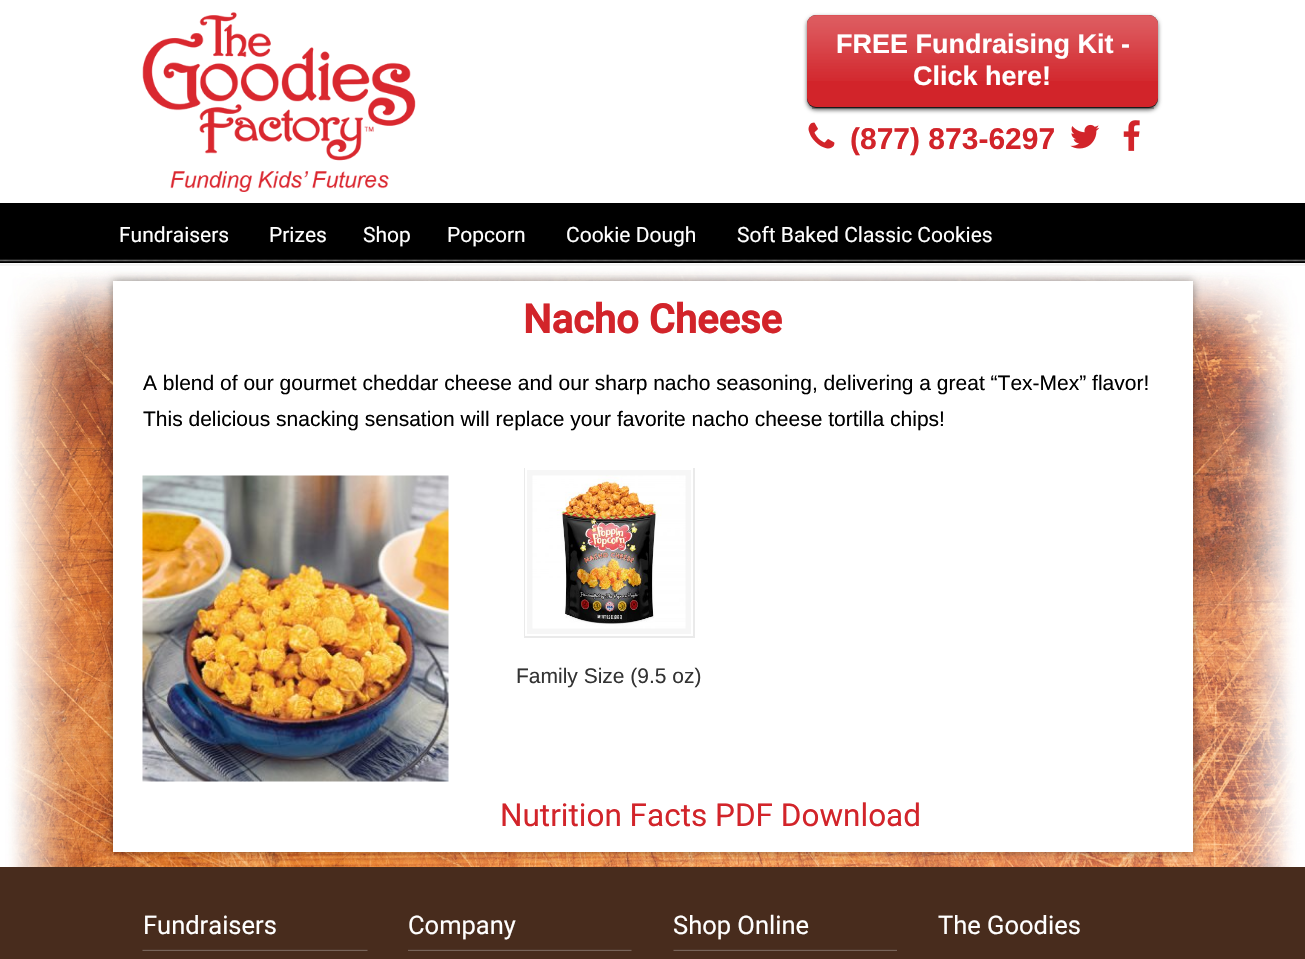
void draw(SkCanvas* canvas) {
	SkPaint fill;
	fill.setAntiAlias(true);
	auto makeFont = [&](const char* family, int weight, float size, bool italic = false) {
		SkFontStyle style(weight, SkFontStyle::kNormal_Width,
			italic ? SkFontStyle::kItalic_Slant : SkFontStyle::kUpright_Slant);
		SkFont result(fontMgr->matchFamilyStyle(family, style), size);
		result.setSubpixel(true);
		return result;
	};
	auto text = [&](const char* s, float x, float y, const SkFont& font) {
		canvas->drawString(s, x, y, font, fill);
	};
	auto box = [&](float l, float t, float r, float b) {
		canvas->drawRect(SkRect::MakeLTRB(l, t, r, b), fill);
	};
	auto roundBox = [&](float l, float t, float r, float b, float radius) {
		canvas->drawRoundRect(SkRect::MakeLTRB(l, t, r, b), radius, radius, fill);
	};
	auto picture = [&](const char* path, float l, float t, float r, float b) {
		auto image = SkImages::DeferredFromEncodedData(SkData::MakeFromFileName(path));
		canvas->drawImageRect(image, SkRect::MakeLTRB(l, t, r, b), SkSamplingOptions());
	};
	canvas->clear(0xFFFFFFFF);
	picture("image0.png", 142, 12, 416, 192);
	fill.setColor(0x99000000);
	fill.setMaskFilter(SkMaskFilter::MakeBlur(kNormal_SkBlurStyle, 2));
	canvas->drawRoundRect(SkRect::MakeLTRB(807, 17, 1158, 110), 9, 9, fill);
	fill.setMaskFilter(nullptr);
	fill.setColor(0xFF222222);
	roundBox(807, 15, 1158, 108, 9);
	picture("image1.png", 807, 15, 1158, 24);
	fill.setColor(0x40000000);
	box(812, 107, 1154, 109);
	fill.setColor(0xFFD2242A);
	roundBox(807, 15, 1158, 107, 9);
	picture("image2.png", 807, 15, 1158, 81);
	picture("image3.png", 808, 122, 835, 149);
	picture("image4.png", 1070, 124, 1100, 149);
	picture("image5.png", 1123, 120, 1140, 151);
	fill.setColor(0xFF000000);
	box(0, 203, 1305, 263);
	picture("image6.png", 0, 259, 1305, 262);
	picture("image7.png", 0, 263, 1305, 867);
	picture("image8.png", 0, 263, 1305, 266);
	fill.setColor(0x66000000);
	fill.setMaskFilter(SkMaskFilter::MakeBlur(kNormal_SkBlurStyle, 4.5f));
	canvas->drawRect(SkRect::MakeLTRB(113, 281, 1193, 852), fill);
	fill.setMaskFilter(nullptr);
	fill.setColor(0xFFFFFFFF);
	box(113, 281, 1193, 852);
	picture("image9.png", 142, 475, 449, 782);
	canvas->save();
	canvas->clipRect(SkRect::MakeLTRB(500, 468, 719, 647));
	fill.setStyle(SkPaint::kStroke_Style);
	fill.setStrokeWidth(2);
	fill.setColor(0xFFEAEAEA);
	canvas->drawRect(SkRect::MakeLTRB(525, 468, 694, 637), fill);
	canvas->restore();
	fill.setStyle(SkPaint::kFill_Style);
	fill.setColor(0xFFF6F6F6);
	canvas->drawRect(SkRect::MakeLTRB(526, 469, 692, 635), fill);
	fill.setStyle(SkPaint::kStroke_Style);
	fill.setColor(0xFFFFFFFF);
	canvas->drawRect(SkRect::MakeLTRB(526, 469, 692, 635), fill);
	picture("image10.png", 532, 475, 686, 629);
	fill.setStyle(SkPaint::kFill_Style);
	fill.setColor(0xFF482C1D);
	box(0, 867, 1305, 959);
	picture("image11.png", 142, 949, 368, 951);
	picture("image12.png", 408, 949, 632, 951);
	picture("image13.png", 673, 949, 897, 951);
	auto font1 = makeFont("Liberation Sans", 700, 27);
	fill.setColor(0xFFFFFFFF);
	text("FREE Fundraising Kit -", 836, 53, font1);
	text("Click here!", 913, 85, font1);
	auto font2 = makeFont("Liberation Sans", 700, 30);
	fill.setColor(0xFFD2242A);
	text("(877) 873-6297", 850, 149, font2);
	auto font3 = makeFont("Roboto", 400, 21);
	fill.setColor(0xFFFFFFFF);
	text("Fundraisers", 119, 242, font3);
	text("Prizes", 269, 242, font3);
	text("Shop", 363, 242, font3);
	text("Popcorn", 447, 242, font3);
	text("Cookie Dough", 566, 242, font3);
	text("Soft Baked Classic Cookies", 737, 242, font3);
	auto font4 = makeFont("Roboto", 700, 40);
	fill.setColor(0xFFD2242A);
	text("Nacho Cheese", 523, 333, font4);
	auto font5 = makeFont("Liberation Sans", 400, 21);
	fill.setColor(0xFF000000);
	text("A blend of our gourmet cheddar cheese and our sharp nacho seasoning, delivering a great “Tex-Mex” flavor!", 143, 390, font5);
	text("This delicious snacking sensation will replace your favorite nacho cheese tortilla chips!", 143, 426, font5);
	fill.setColor(0xFF333333);
	text("Family Size (9.5 oz)", 516, 683, font5);
	auto font6 = makeFont("Roboto", 400, 31.5f);
	fill.setColor(0xFFD2242A);
	text("Nutrition Facts PDF Download", 500, 826, font6);
	auto font7 = makeFont("Roboto", 400, 25.5f);
	fill.setColor(0xFFFFFFFF);
	text("Fundraisers", 143, 934, font7);
	text("Company", 408, 934, font7);
	text("Shop Online", 673, 934, font7);
	text("The Goodies", 938, 934, font7);
}
